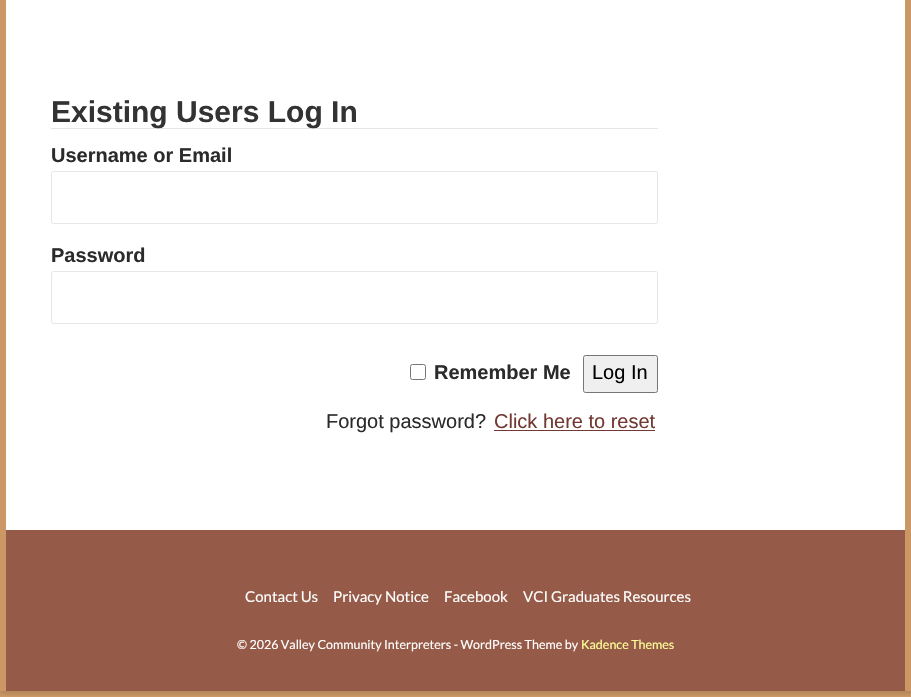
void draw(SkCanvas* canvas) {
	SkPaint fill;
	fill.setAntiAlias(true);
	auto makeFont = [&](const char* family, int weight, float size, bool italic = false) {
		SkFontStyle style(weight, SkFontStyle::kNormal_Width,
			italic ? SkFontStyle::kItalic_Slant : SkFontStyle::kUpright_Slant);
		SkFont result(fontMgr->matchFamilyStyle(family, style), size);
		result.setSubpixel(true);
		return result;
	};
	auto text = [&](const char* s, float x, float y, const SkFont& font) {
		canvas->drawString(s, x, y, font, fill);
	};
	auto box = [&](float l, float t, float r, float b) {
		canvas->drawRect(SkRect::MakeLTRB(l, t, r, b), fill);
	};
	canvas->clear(0xFFCB9865);
	canvas->save();
	canvas->clipRect(SkRect::MakeLTRB(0, 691, 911, 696));
	fill.setColor(0x29000000);
	fill.setMaskFilter(SkMaskFilter::MakeBlur(kNormal_SkBlurStyle, 3));
	canvas->drawRect(SkRect::MakeLTRB(-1, -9, 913, 693), fill);
	fill.setMaskFilter(nullptr);
	canvas->restore();
	fill.setColor(0xFFFFFFFF);
	box(6, 0, 905, 530);
	fill.setColor(0xFFE5E5E5);
	box(51, 128, 658, 129);
	fill.setStyle(SkPaint::kStroke_Style);
	fill.setStrokeWidth(1);
	fill.setColor(0xFFE6E6E6);
	canvas->drawRoundRect(SkRect::MakeLTRB(51.5f, 171.5f, 657.5f, 223.5f), 2, 2, fill);
	canvas->drawRoundRect(SkRect::MakeLTRB(51.5f, 271.5f, 657.5f, 323.5f), 2, 2, fill);
	fill.setColor(0xFF767676);
	canvas->drawRoundRect(SkRect::MakeLTRB(410.5f, 364.5f, 425.5f, 379.5f), 2, 2, fill);
	fill.setStyle(SkPaint::kFill_Style);
	fill.setColor(0xFFEFEFEF);
	canvas->drawRoundRect(SkRect::MakeLTRB(583.5f, 355.5f, 657.5f, 392.5f), 2, 2, fill);
	fill.setStyle(SkPaint::kStroke_Style);
	fill.setColor(0xFF767676);
	canvas->drawRoundRect(SkRect::MakeLTRB(583.5f, 355.5f, 657.5f, 392.5f), 2, 2, fill);
	fill.setStyle(SkPaint::kFill_Style);
	fill.setColor(0xFF723933);
	box(494, 430, 655, 431);
	fill.setColor(0xFF965B48);
	box(6, 530, 905, 691);
	auto font1 = makeFont("Liberation Sans", 700, 30);
	fill.setColor(0xFF333333);
	text("Existing Users Log In", 51, 122, font1);
	auto font2 = makeFont("Liberation Sans", 700, 20);
	fill.setColor(0xFF2B2B2B);
	text("Username or Email", 51, 162, font2);
	text("Password", 51, 262, font2);
	text("Remember Me", 434, 379, font2);
	auto font3 = makeFont("Liberation Sans", 400, 20);
	fill.setColor(0xFF000000);
	text("Log In", 592, 379, font3);
	fill.setColor(0xFF2B2B2B);
	text("Forgot password?", 326, 428, font3);
	fill.setColor(0xFF723933);
	text("Click here to reset", 494, 428, font3);
	auto font4 = makeFont("Lato", 400, 15);
	fill.setColor(0xFFFFFFFF);
	text("Contact Us", 245, 602, font4);
	text("Privacy Notice", 333, 602, font4);
	text("Facebook", 444, 602, font4);
	text("VCI Graduates Resources", 523, 602, font4);
	auto font5 = makeFont("Lato", 400, 12.5f);
	text("© 2026 Valley Community Interpreters - WordPress Theme by", 237, 649, font5);
	fill.setColor(0xFFFFFF99);
	text("Kadence Themes", 581, 649, font5);
}
